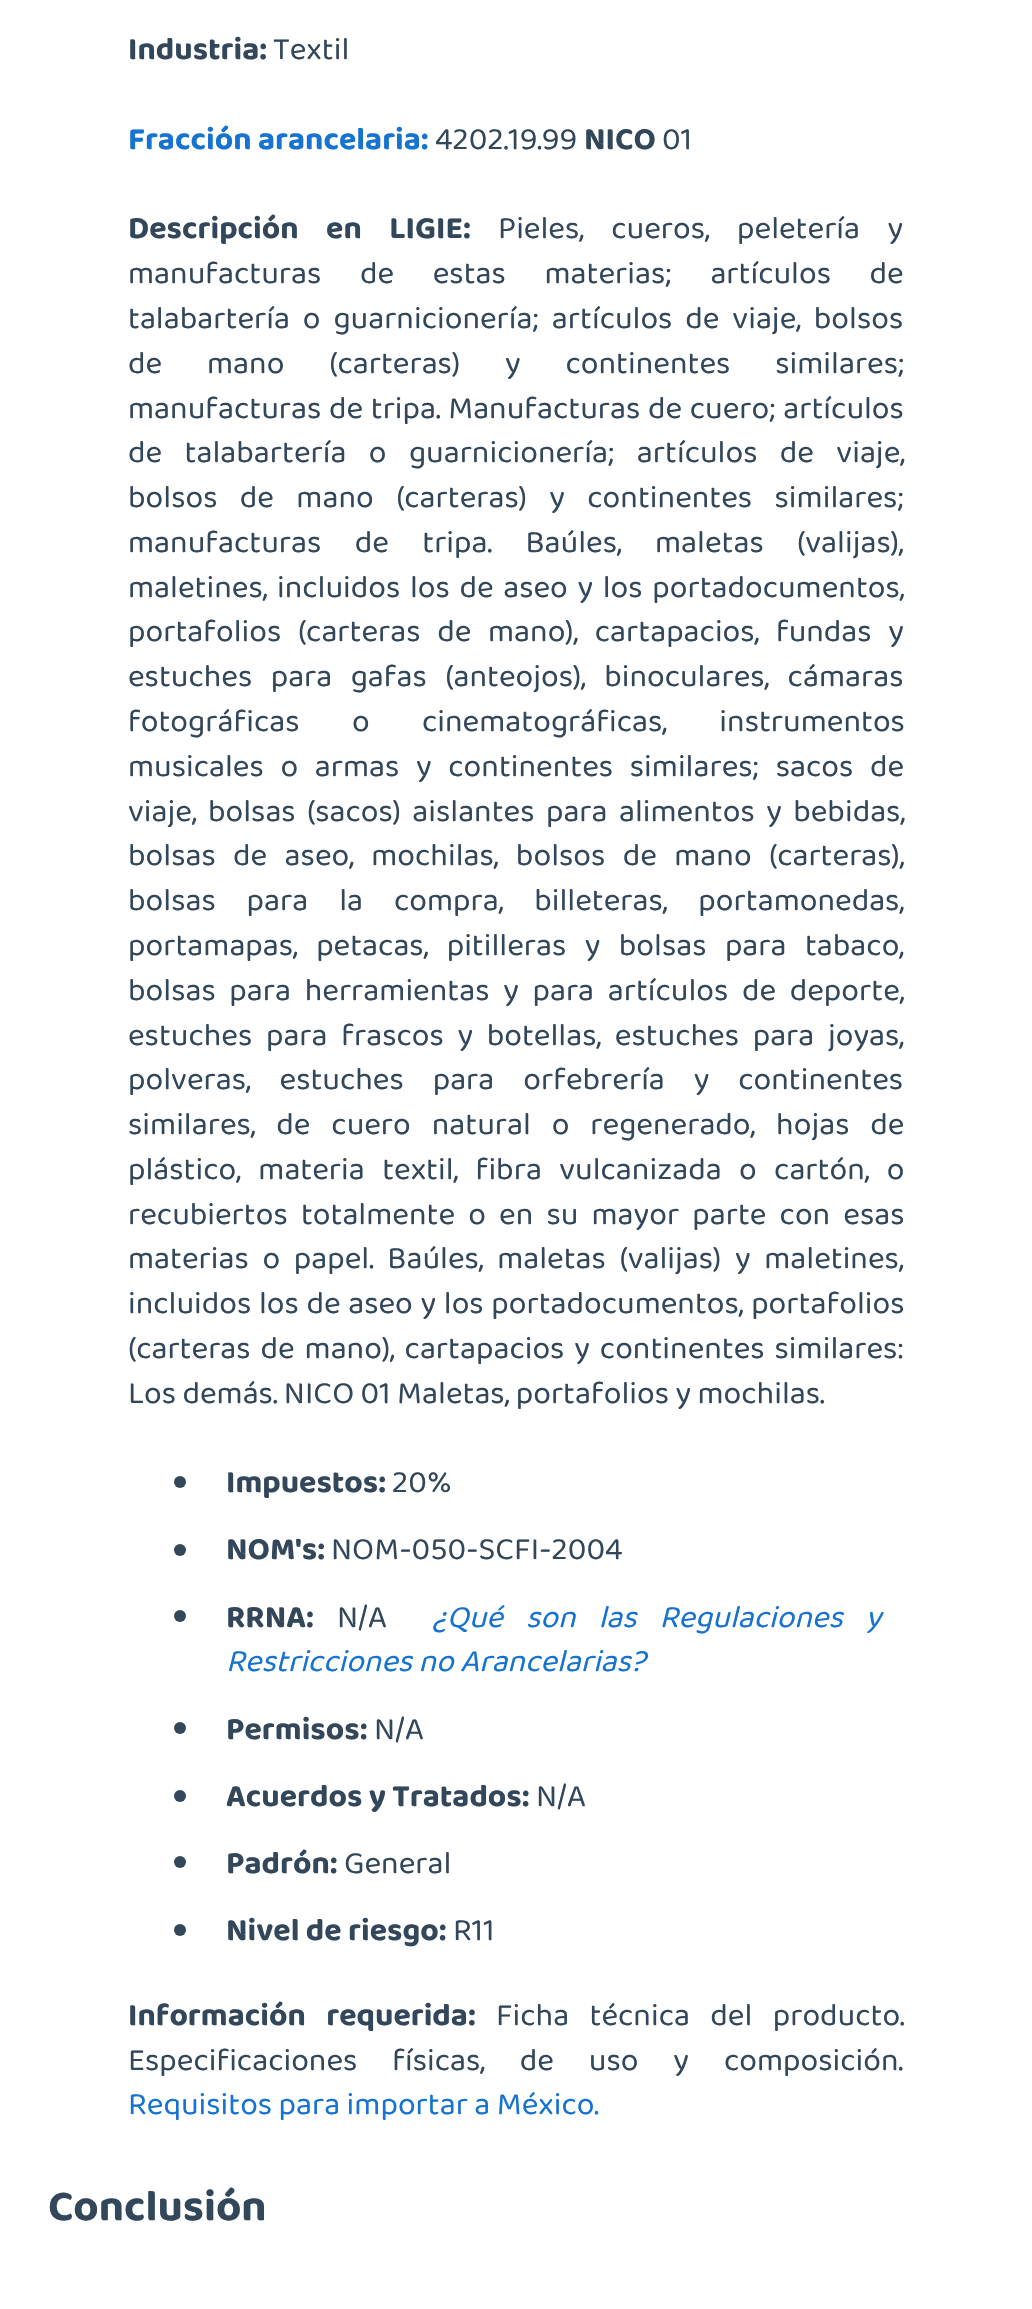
void draw(SkCanvas* canvas) {
	SkPaint fill;
	fill.setAntiAlias(true);
	auto makeFont = [&](const char* family, int weight, float size, bool italic = false) {
		SkFontStyle style(weight, SkFontStyle::kNormal_Width,
			italic ? SkFontStyle::kItalic_Slant : SkFontStyle::kUpright_Slant);
		SkFont result(fontMgr->matchFamilyStyle(family, style), size);
		result.setSubpixel(true);
		return result;
	};
	auto text = [&](const char* s, float x, float y, const SkFont& font) {
		canvas->drawString(s, x, y, font, fill);
	};
	auto spacedText = [&](const char* s, float x, float y, const SkFont& font, const SkPaint& ink, float letter, float word) {
		std::vector<SkGlyphID> glyphs(font.countText(s, strlen(s), SkTextEncoding::kUTF8));
		std::vector<float> xs(glyphs.size());
		font.textToGlyphs(s, strlen(s), SkTextEncoding::kUTF8, glyphs);
		font.getXPos(glyphs, xs, x);
		float extra = 0;
		for (size_t i = 0; i < glyphs.size(); i++) {
			xs[i] += extra;
			extra += letter + word * (glyphs[i] == font.unicharToGlyph(' '));
		}
		canvas->drawTextBlob(SkTextBlob::MakeFromPosHGlyphs(glyphs, xs, y, font), 0, 0, ink);
	};
	canvas->clear(0xFFFFFFFF);
	fill.setColor(0xFF33475B);
	canvas->drawCircle(180, 1482, 6, fill);
	canvas->drawCircle(180, 1550, 6, fill);
	canvas->drawCircle(180, 1616, 6, fill);
	canvas->drawCircle(180, 1728, 6, fill);
	canvas->drawCircle(180, 1796, 6, fill);
	canvas->drawCircle(180, 1862, 6, fill);
	canvas->drawCircle(180, 1930, 6, fill);
	auto font1 = makeFont("Baloo Chettan 2", 700, 32);
	text("Industria:", 128, 59, font1);
	auto font2 = makeFont("Baloo Chettan 2", 400, 32);
	text("Textil", 273, 59, font2);
	fill.setColor(0xFF1773D1);
	text("Fracción arancelaria:", 128, 149, font1);
	fill.setColor(0xFF33475B);
	text("4202.19.99", 435, 149, font2);
	text("NICO", 584, 149, font1);
	text("01", 662, 149, font2);
	spacedText("Descripción en LIGIE:", 128, 238, font1, fill, 0, 21);
	spacedText("Pieles, cueros, peletería y", 498, 238, font2, fill, 0, 21);
	spacedText("manufacturas de estas materias; artículos de", 128, 283, font2, fill, 0, 32.25f);
	spacedText("talabartería o guarnicionería; artículos de viaje, bolsos", 128, 328, font2, fill, 0, 6.5f);
	spacedText("de mano (carteras) y continentes similares;", 128, 373, font2, fill, 0, 38.5f);
	spacedText("manufacturas de tripa. Manufacturas de cuero; artículos", 128, 418, font2, fill, 0, 1.25f);
	spacedText("de talabartería o guarnicionería; artículos de viaje,", 128, 462, font2, fill, 0, 16);
	spacedText("bolsos de mano (carteras) y continentes similares;", 128, 507, font2, fill, 0, 16);
	spacedText("manufacturas de tripa. Baúles, maletas (valijas),", 128, 552, font2, fill, 0, 27);
	spacedText("maletines, incluidos los de aseo y los portadocumentos,", 128, 597, font2, fill, 0, 3.25f);
	spacedText("portafolios (carteras de mano), cartapacios, fundas y", 128, 641, font2, fill, 0, 10.25f);
	spacedText("estuches para gafas (anteojos), binoculares, cámaras", 128, 686, font2, fill, 0, 12);
	spacedText("fotográficas o cinematográficas, instrumentos", 128, 731, font2, fill, 0, 46);
	spacedText("musicales o armas y continentes similares; sacos de", 128, 776, font2, fill, 0, 10.25f);
	spacedText("viaje, bolsas (sacos) aislantes para alimentos y bebidas,", 128, 821, font2, fill, 0, 5);
	spacedText("bolsas de aseo, mochilas, bolsos de mano (carteras),", 128, 865, font2, fill, 0, 11);
	spacedText("bolsas para la compra, billeteras, portamonedas,", 128, 910, font2, fill, 0, 24.5f);
	spacedText("portamapas, petacas, pitilleras y bolsas para tabaco,", 128, 955, font2, fill, 0, 12);
	spacedText("bolsas para herramientas y para artículos de deporte,", 128, 1000, font2, fill, 0, 7.25f);
	spacedText("estuches para frascos y botellas, estuches para joyas,", 128, 1045, font2, fill, 0, 7.25f);
	spacedText("polveras, estuches para orfebrería y continentes", 128, 1089, font2, fill, 0, 22.5f);
	spacedText("similares, de cuero natural o regenerado, hojas de", 128, 1134, font2, fill, 0, 14.5f);
	spacedText("plástico, materia textil, fibra vulcanizada o cartón, o", 128, 1179, font2, fill, 0, 11);
	spacedText("recubiertos totalmente o en su mayor parte con esas", 128, 1224, font2, fill, 0, 6.75f);
	spacedText("materias o papel. Baúles, maletas (valijas) y maletines,", 128, 1268, font2, fill, 0, 7.25f);
	spacedText("incluidos los de aseo y los portadocumentos, portafolios", 128, 1313, font2, fill, 0, 1.25f);
	spacedText("(carteras de mano), cartapacios y continentes similares:", 128, 1358, font2, fill, 0, 3.5f);
	text("Los demás. NICO 01 Maletas, portafolios y mochilas.", 128, 1403, font2);
	text("Impuestos:", 226, 1492, font1);
	text("20%", 392, 1492, font2);
	text("NOM's:", 226, 1559, font1);
	text("NOM-050-SCFI-2004", 331, 1559, font2);
	text("RRNA:", 226, 1627, font1);
	text("N/A", 337, 1627, font2);
	auto font3 = makeFont("Baloo Chettan 2", 400, 32, true);
	fill.setColor(0xFF1773D1);
	spacedText("¿Qué son las Regulaciones y", 432, 1627, font3, fill, 0, 16.5f);
	text("Restricciones no Arancelarias?", 226, 1671, font3);
	fill.setColor(0xFF33475B);
	text("Permisos:", 226, 1739, font1);
	text("N/A", 374, 1739, font2);
	text("Acuerdos y Tratados:", 226, 1806, font1);
	text("N/A", 536, 1806, font2);
	text("Padrón:", 226, 1873, font1);
	text("General", 344, 1873, font2);
	text("Nivel de riesgo:", 226, 1940, font1);
	text("R11", 453, 1940, font2);
	spacedText("Información requerida:", 128, 2025, font1, fill, 0, 14);
	spacedText("Ficha técnica del producto.", 496, 2025, font2, fill, 0, 14);
	spacedText("Especificaciones físicas, de uso y composición.", 128, 2070, font2, fill, 0, 28.5f);
	fill.setColor(0xFF1773D1);
	text("Requisitos para importar a México.", 128, 2114, font2);
	auto font4 = makeFont("Baloo Chettan 2", 700, 44);
	fill.setColor(0xFF33475B);
	text("Conclusión", 48, 2220, font4);
}
